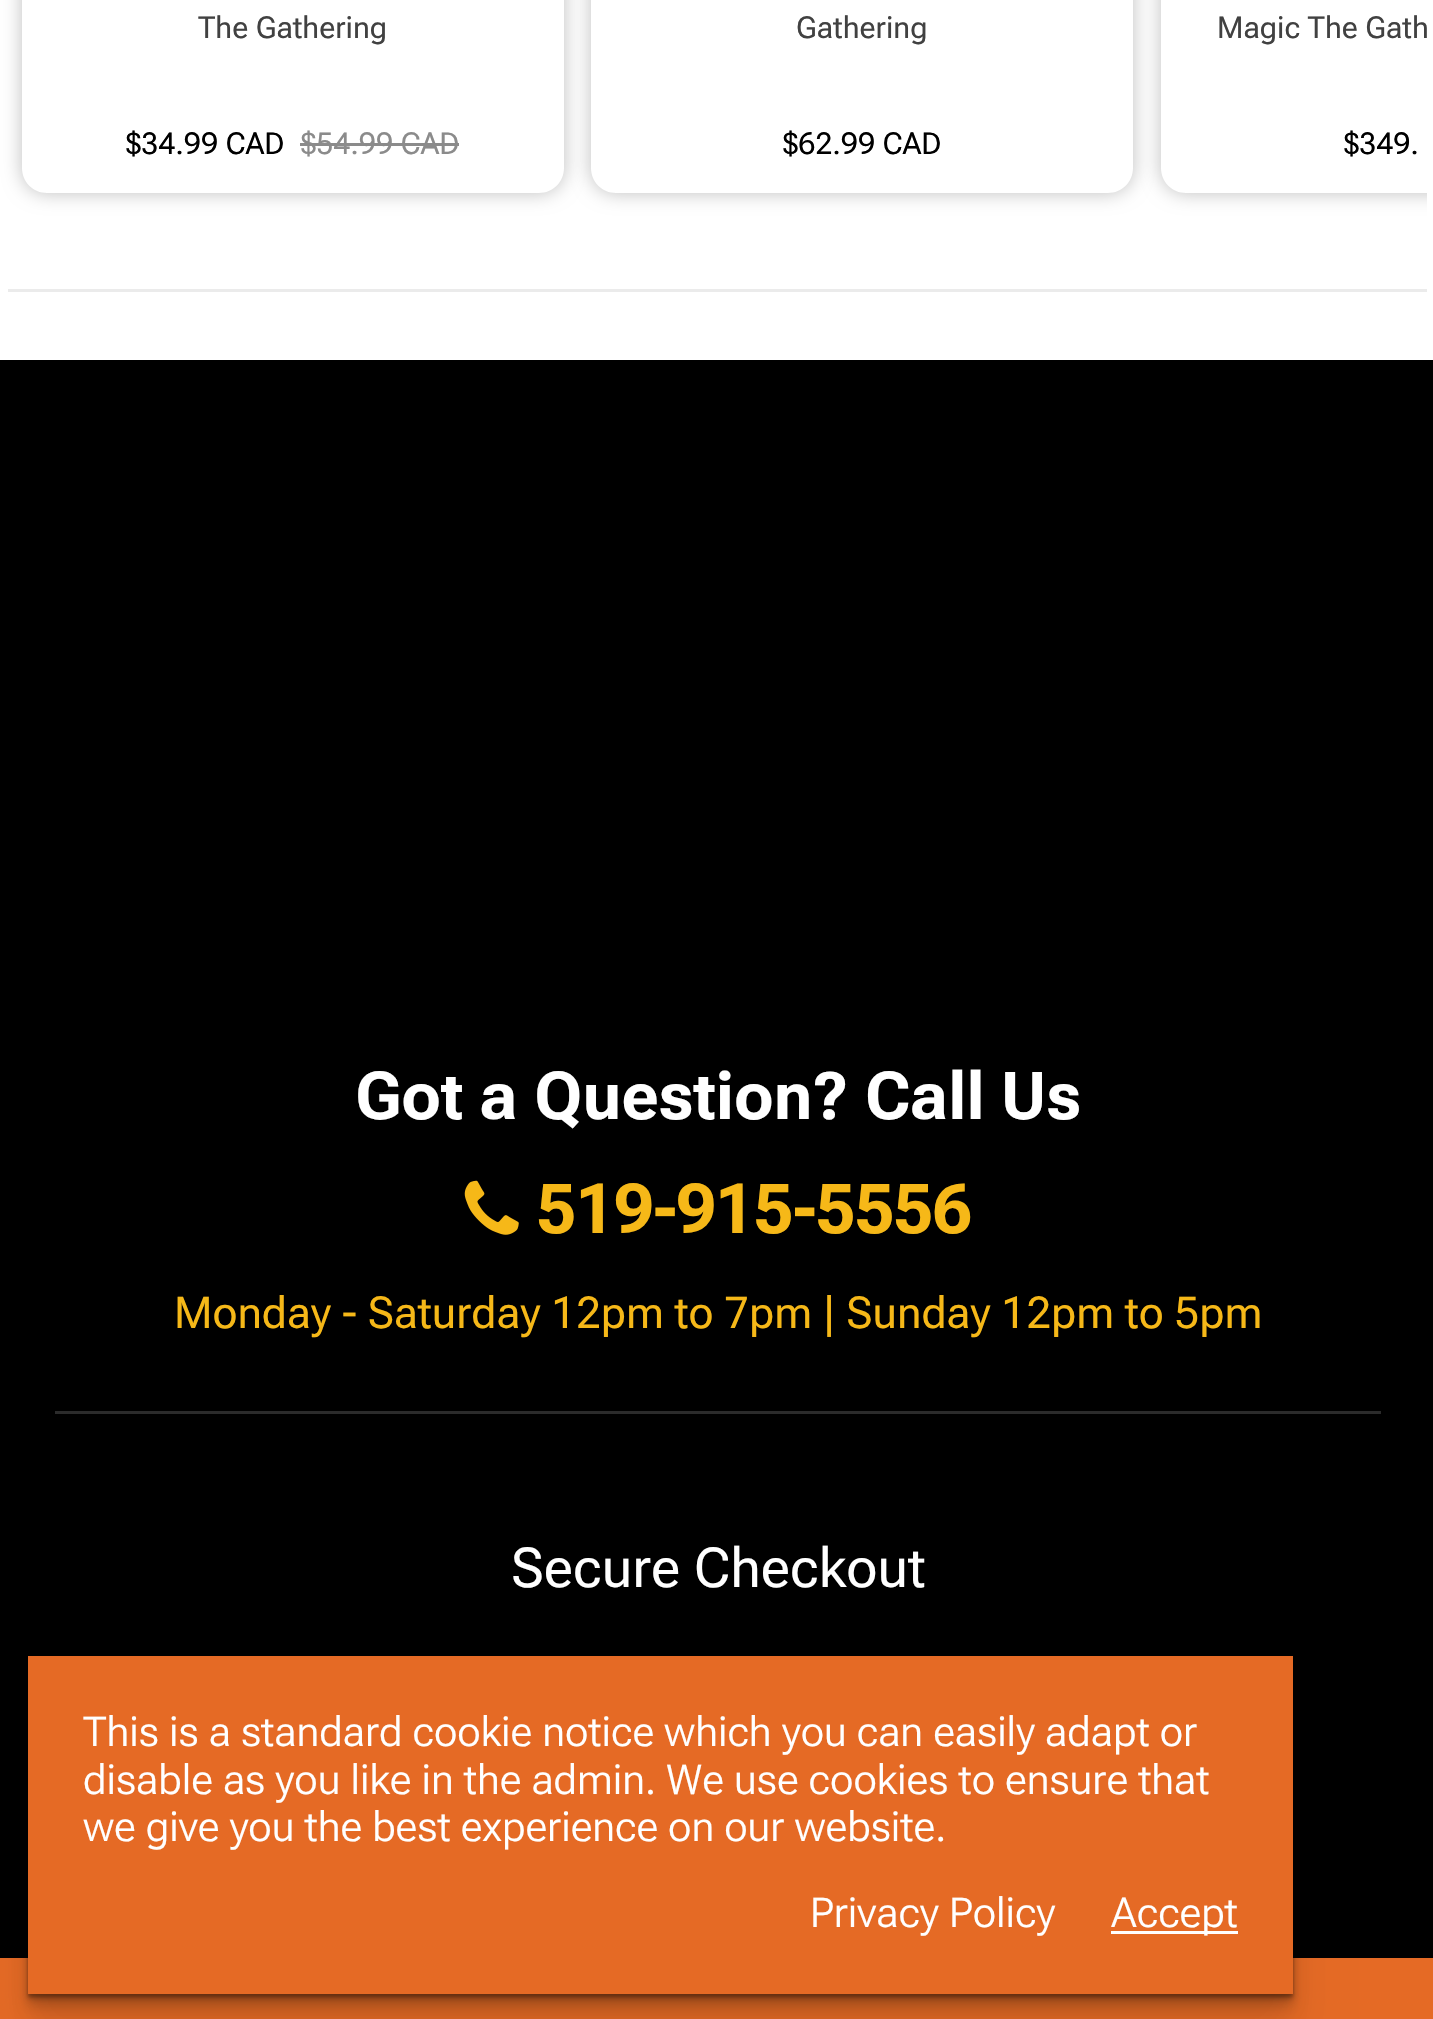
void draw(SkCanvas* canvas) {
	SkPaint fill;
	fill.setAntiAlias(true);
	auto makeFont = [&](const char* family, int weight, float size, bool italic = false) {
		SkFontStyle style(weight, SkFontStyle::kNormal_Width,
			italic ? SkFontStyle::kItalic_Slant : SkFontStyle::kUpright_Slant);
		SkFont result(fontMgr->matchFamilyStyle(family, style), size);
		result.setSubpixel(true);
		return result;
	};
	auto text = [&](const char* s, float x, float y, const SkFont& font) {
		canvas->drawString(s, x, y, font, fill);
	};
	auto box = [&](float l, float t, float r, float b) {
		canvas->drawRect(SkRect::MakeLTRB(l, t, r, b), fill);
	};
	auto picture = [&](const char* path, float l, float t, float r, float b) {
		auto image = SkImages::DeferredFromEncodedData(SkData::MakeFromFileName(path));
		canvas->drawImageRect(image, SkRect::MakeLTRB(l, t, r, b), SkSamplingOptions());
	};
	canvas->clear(0xFFFFFFFF);
	fill.setColor(0xFFEBEBEB);
	box(8, 289, 1427, 292);
	canvas->save();
	canvas->clipPath(SkPathBuilder(SkPathFillType::kEvenOdd).moveTo(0, 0).lineTo(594, 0).lineTo(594, 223).lineTo(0, 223).close().moveTo(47, -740).lineTo(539, -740).cubicTo(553, -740, 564, -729, 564, -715).lineTo(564, 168).cubicTo(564, 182, 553, 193, 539, 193).lineTo(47, 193).cubicTo(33, 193, 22, 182, 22, 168).lineTo(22, -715).cubicTo(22, -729, 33, -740, 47, -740).close().detach(), true);
	fill.setColor(0x40000000);
	fill.setMaskFilter(SkMaskFilter::MakeBlur(kNormal_SkBlurStyle, 9.5f));
	canvas->drawRoundRect(SkRect::MakeLTRB(22, -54, 564, 193), 25, 25, fill);
	fill.setMaskFilter(nullptr);
	canvas->restore();
	fill.setColor(0xFF8B8B8B);
	box(300, 143, 459, 146);
	canvas->save();
	canvas->clipPath(SkPathBuilder(SkPathFillType::kEvenOdd).moveTo(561, 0).lineTo(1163, 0).lineTo(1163, 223).lineTo(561, 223).close().moveTo(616, -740).lineTo(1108, -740).cubicTo(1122, -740, 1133, -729, 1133, -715).lineTo(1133, 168).cubicTo(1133, 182, 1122, 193, 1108, 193).lineTo(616, 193).cubicTo(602, 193, 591, 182, 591, 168).lineTo(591, -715).cubicTo(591, -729, 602, -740, 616, -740).close().detach(), true);
	fill.setColor(0x40000000);
	fill.setMaskFilter(SkMaskFilter::MakeBlur(kNormal_SkBlurStyle, 9.5f));
	canvas->drawRoundRect(SkRect::MakeLTRB(591, -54, 1133, 193), 25, 25, fill);
	fill.setMaskFilter(nullptr);
	canvas->restore();
	canvas->save();
	canvas->clipRect(SkRect::MakeLTRB(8, 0, 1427, 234));
	canvas->clipPath(SkPathBuilder(SkPathFillType::kEvenOdd).moveTo(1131, 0).lineTo(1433, 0).lineTo(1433, 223).lineTo(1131, 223).close().moveTo(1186, -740).lineTo(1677, -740).cubicTo(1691, -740, 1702, -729, 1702, -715).lineTo(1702, 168).cubicTo(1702, 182, 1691, 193, 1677, 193).lineTo(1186, 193).cubicTo(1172, 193, 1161, 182, 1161, 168).lineTo(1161, -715).cubicTo(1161, -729, 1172, -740, 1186, -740).close().detach(), true);
	fill.setMaskFilter(SkMaskFilter::MakeBlur(kNormal_SkBlurStyle, 9.5f));
	canvas->drawRoundRect(SkRect::MakeLTRB(1161, -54, 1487, 193), 25, 25, fill);
	fill.setMaskFilter(nullptr);
	canvas->restore();
	fill.setColor(0xFF000000);
	box(0, 360, 1433, 1958);
	fill.setColor(0xFF2B2B2B);
	box(55, 1411, 1381, 1414);
	picture("image0.png", 464, 1180, 519, 1235);
	fill.setColor(0xFFE56A25);
	box(0, 1958, 1433, 2019);
	fill.setColor(0x0D000000);
	fill.setMaskFilter(SkMaskFilter::MakeBlur(kNormal_SkBlurStyle, 22));
	canvas->drawRect(SkRect::MakeLTRB(28, 1700, 1293, 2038), fill);
	fill.setMaskFilter(nullptr);
	fill.setColor(0x1A000000);
	fill.setMaskFilter(SkMaskFilter::MakeBlur(kNormal_SkBlurStyle, 11));
	canvas->drawRect(SkRect::MakeLTRB(28, 1678, 1293, 2016), fill);
	fill.setMaskFilter(nullptr);
	fill.setColor(0x26000000);
	fill.setMaskFilter(SkMaskFilter::MakeBlur(kNormal_SkBlurStyle, 5.5f));
	canvas->drawRect(SkRect::MakeLTRB(28, 1667, 1293, 2005), fill);
	fill.setMaskFilter(nullptr);
	fill.setColor(0x33000000);
	fill.setMaskFilter(SkMaskFilter::MakeBlur(kNormal_SkBlurStyle, 3));
	canvas->drawRect(SkRect::MakeLTRB(28, 1661, 1293, 1999), fill);
	fill.setMaskFilter(nullptr);
	fill.setColor(0x40000000);
	fill.setMaskFilter(SkMaskFilter::MakeBlur(kNormal_SkBlurStyle, 1.5f));
	canvas->drawRect(SkRect::MakeLTRB(28, 1658, 1293, 1997), fill);
	fill.setMaskFilter(nullptr);
	fill.setColor(0xFFE56A25);
	box(28, 1656, 1293, 1994);
	fill.setColor(0xFFFFFFFF);
	box(1111, 1931, 1238, 1934);
	auto font1 = makeFont("Roboto Flex", 400, 30.25f);
	fill.setColor(0xFF414141);
	text("The Gathering", 198, 38, font1);
	fill.setColor(0xFF000000);
	text("$34.99 CAD", 126, 154, font1);
	fill.setColor(0xFF8B8B8B);
	text("$54.99 CAD", 301, 154, font1);
	fill.setColor(0xFF414141);
	text("Gathering", 796, 38, font1);
	fill.setColor(0xFF000000);
	text("$62.99 CAD", 783, 154, font1);
	fill.setColor(0xFF414141);
	text("Magic The Gath", 1217, 38, font1);
	fill.setColor(0xFF000000);
	text("$349.", 1344, 154, font1);
	auto font2 = makeFont("Roboto Flex", 700, 66);
	fill.setColor(0xFFFFFFFF);
	text("Got a Question? Call Us", 355, 1119, font2);
	auto font3 = makeFont("Roboto Flex", 700, 68.75f);
	fill.setColor(0xFFF6B818);
	text("519-915-5556", 537, 1233, font3);
	auto font4 = makeFont("Roboto Flex", 400, 44);
	text("Monday - Saturday 12pm to 7pm | Sunday 12pm to 5pm", 174, 1328, font4);
	auto font5 = makeFont("Roboto Flex", 400, 55);
	fill.setColor(0xFFFFFFFF);
	text("Secure Checkout", 511, 1587, font5);
	auto font6 = makeFont("Roboto Flex", 300, 41.25f);
	text("This is a standard cookie notice which you can easily adapt or", 83, 1746, font6);
	text("disable as you like in the admin. We use cookies to ensure that", 83, 1794, font6);
	text("we give you the best experience on our website.", 83, 1841, font6);
	text("Privacy Policy", 810, 1927, font6);
	text("Accept", 1111, 1927, font6);
}
